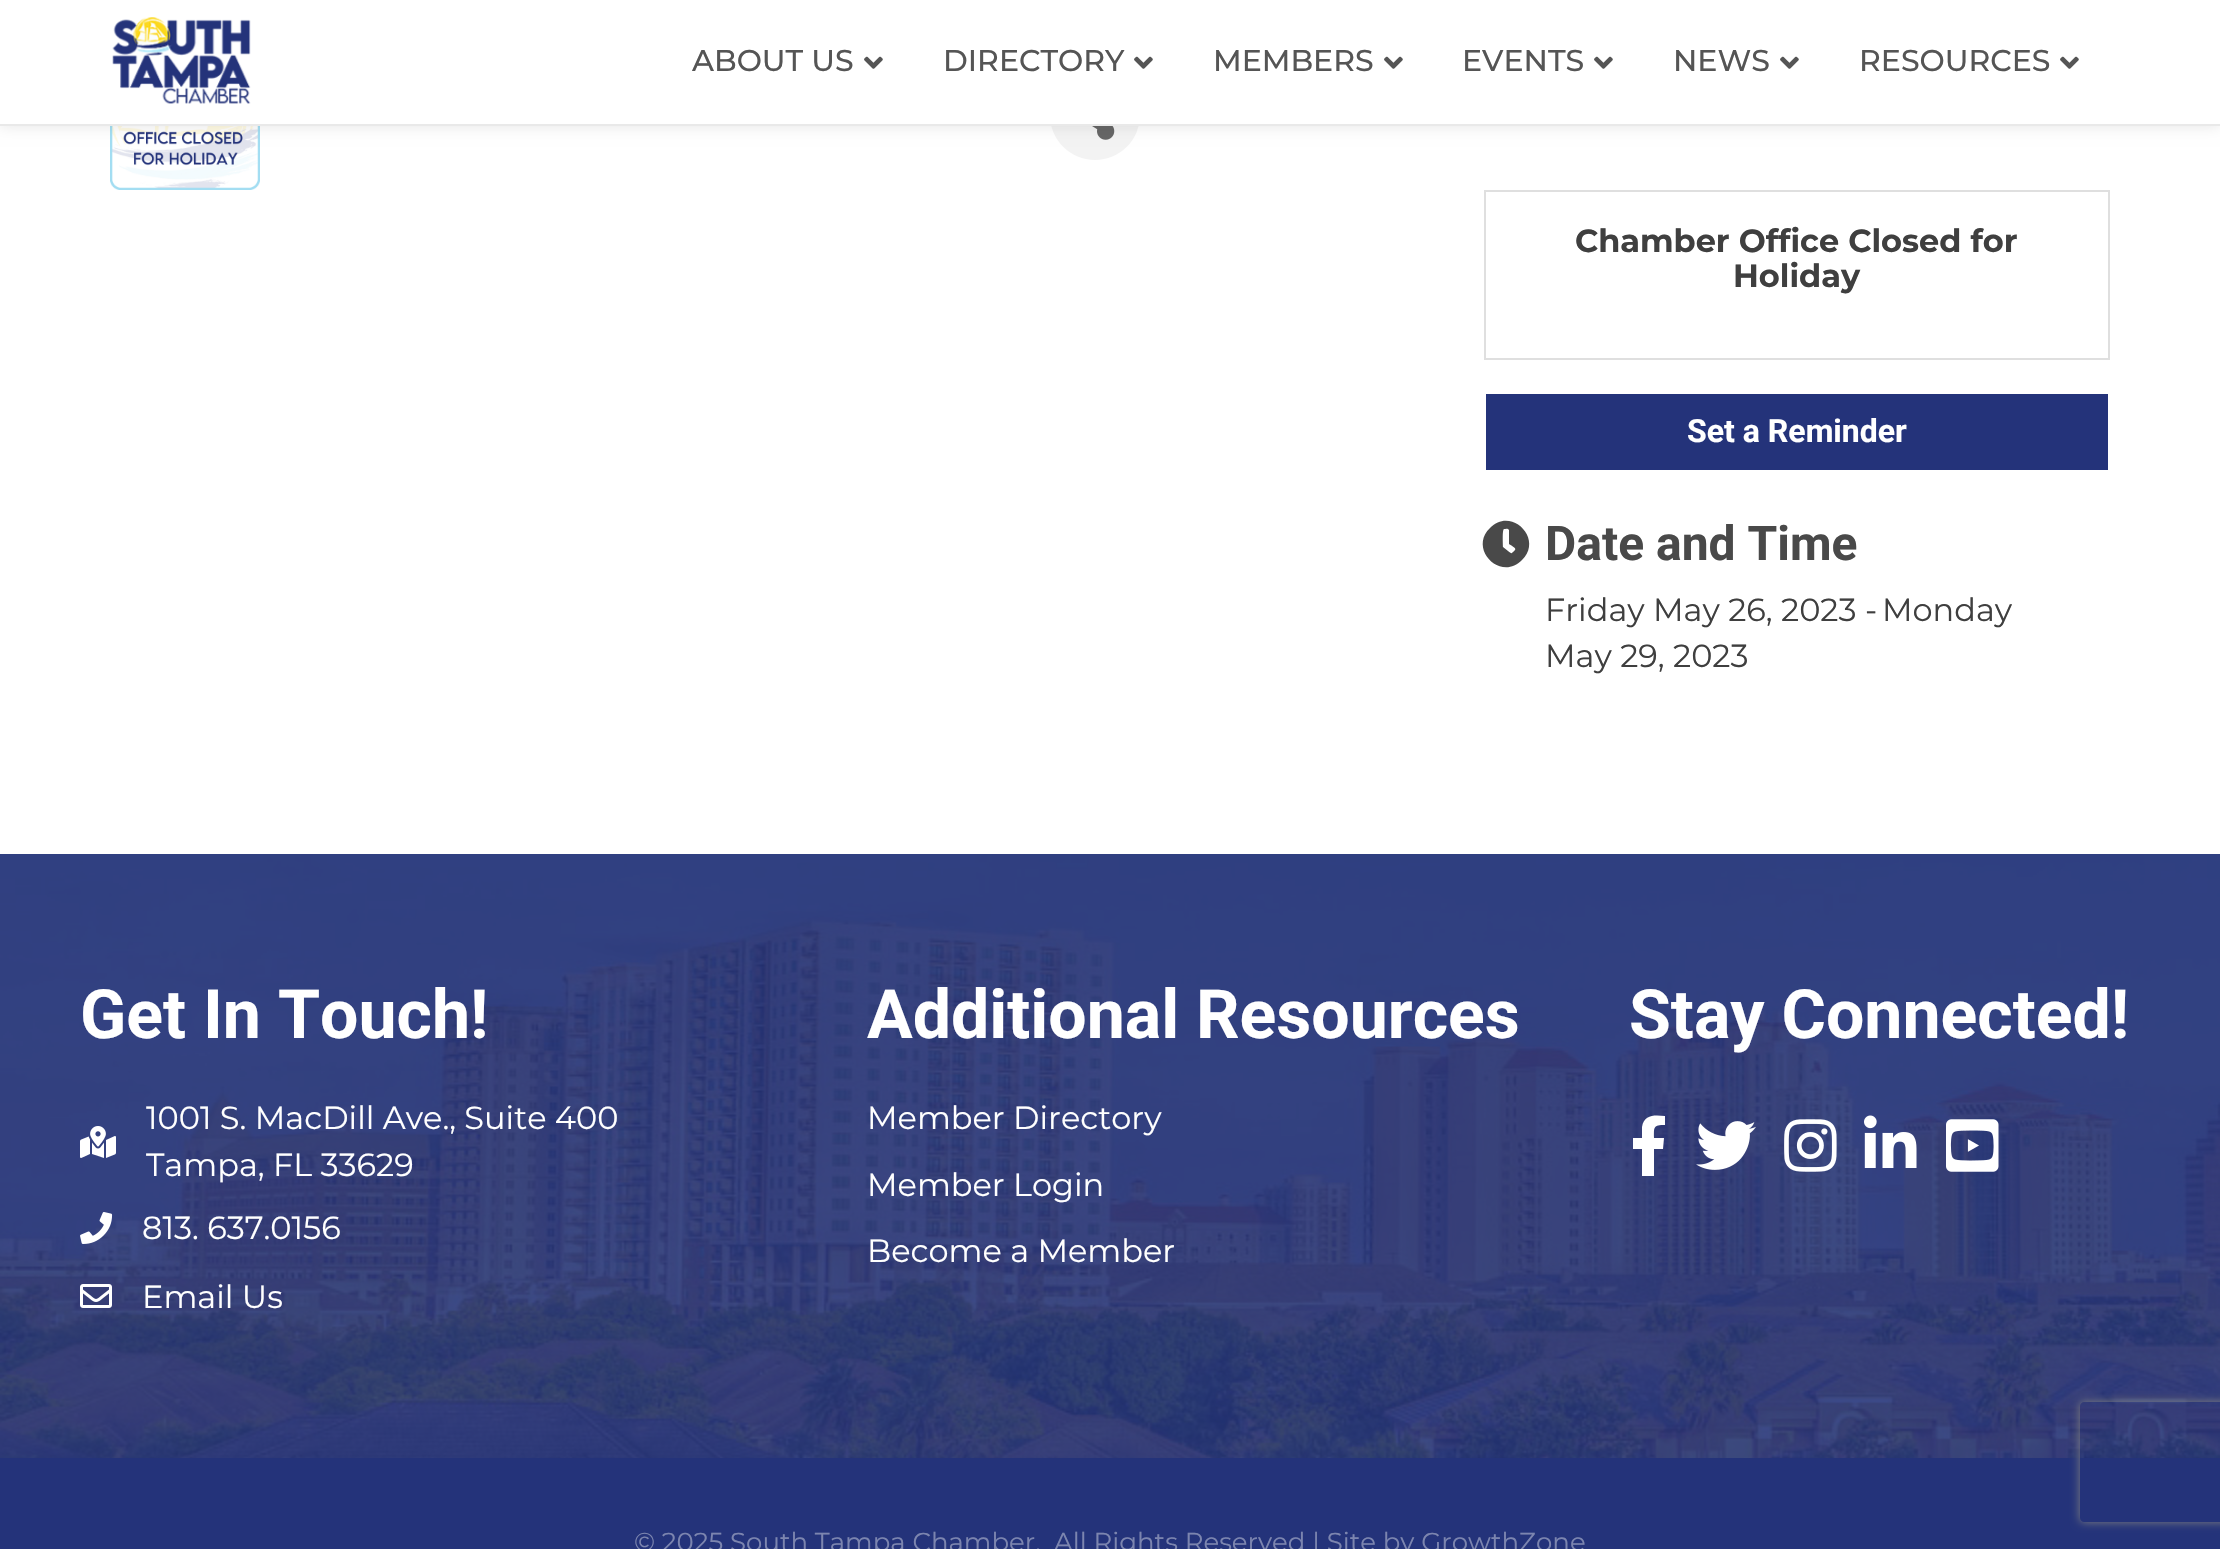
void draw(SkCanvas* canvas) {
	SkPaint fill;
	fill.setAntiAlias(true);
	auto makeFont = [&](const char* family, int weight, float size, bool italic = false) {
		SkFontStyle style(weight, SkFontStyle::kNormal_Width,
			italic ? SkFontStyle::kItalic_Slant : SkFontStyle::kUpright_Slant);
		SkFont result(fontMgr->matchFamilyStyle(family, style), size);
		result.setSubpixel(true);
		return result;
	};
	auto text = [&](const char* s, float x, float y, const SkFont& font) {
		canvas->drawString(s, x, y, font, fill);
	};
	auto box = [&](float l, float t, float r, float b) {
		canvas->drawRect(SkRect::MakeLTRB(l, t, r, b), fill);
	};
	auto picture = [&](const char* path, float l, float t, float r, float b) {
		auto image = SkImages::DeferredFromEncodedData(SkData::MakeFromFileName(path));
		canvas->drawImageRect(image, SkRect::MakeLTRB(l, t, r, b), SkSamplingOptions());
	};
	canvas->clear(0xFFFFFFFF);
	picture("image2.png", 110, 126, 260, 190);
	fill.setColor(0xFFF3F3F3);
	canvas->drawCircle(1095, 115, 45, fill);
	picture("image3.png", 1092, 126, 1115, 140);
	fill.setColor(0x1A000000);
	fill.setMaskFilter(SkMaskFilter::MakeBlur(kNormal_SkBlurStyle, 7));
	canvas->drawRect(SkRect::MakeLTRB(0, 0, 2220, 126), fill);
	fill.setMaskFilter(nullptr);
	fill.setColor(0xFFFFFFFF);
	box(0, 0, 2220, 124);
	fill.setColor(0xFFE9E9E9);
	box(0, 124, 2220, 126);
	picture("image0.png", 112, 17, 251, 104);
	picture("image1.png", 864, 56, 883, 69);
	picture("image1.png", 1134, 56, 1153, 69);
	picture("image1.png", 1384, 56, 1403, 69);
	picture("image1.png", 1594, 56, 1613, 69);
	picture("image1.png", 1780, 56, 1799, 69);
	picture("image1.png", 2060, 56, 2079, 69);
	fill.setStyle(SkPaint::kStroke_Style);
	fill.setStrokeWidth(2);
	fill.setColor(0xFFDFDFDF);
	canvas->drawRect(SkRect::MakeLTRB(1485, 191, 2109, 359), fill);
	fill.setStyle(SkPaint::kFill_Style);
	fill.setColor(0xFF24337A);
	box(1486, 394, 2108, 470);
	fill.setColor(0xFF494949);
	canvas->drawPath(SkPathBuilder().moveTo(1490, 528).cubicTo(1511, 506, 1544, 539, 1522, 560).cubicTo(1501, 582, 1468, 549, 1490, 528).close().moveTo(1515, 550).cubicTo(1517, 548, 1510, 545, 1509, 544).lineTo(1509, 530).cubicTo(1508, 528, 1505, 529, 1504, 529).cubicTo(1502, 530, 1503, 545, 1503, 547).lineTo(1508, 551).cubicTo(1512, 554, 1511, 554, 1515, 550).close().detach(), fill);
	picture("image4.png", 0, 854, 2220, 1458);
	picture("image5.png", 80, 1126, 116, 1158);
	picture("image6.png", 80, 1212, 113, 1244);
	picture("image7.png", 80, 1284, 112, 1308);
	fill.setColor(0xFFFFFFFF);
	canvas->drawPath(SkPathBuilder().moveTo(1663, 1149).lineTo(1654, 1149).lineTo(1654, 1176).lineTo(1642, 1176).lineTo(1642, 1149).lineTo(1633, 1149).lineTo(1633, 1138).lineTo(1642, 1138).lineTo(1642, 1127).cubicTo(1644, 1114, 1655, 1115, 1665, 1116).lineTo(1665, 1125).cubicTo(1653, 1125, 1654, 1127, 1654, 1138).lineTo(1664, 1138).close().detach(), fill);
	picture("image8.png", 1696, 1121, 1756, 1170);
	picture("image9.png", 1784, 1119, 1837, 1172);
	picture("image10.png", 1864, 1115, 1917, 1168);
	picture("image11.png", 1946, 1119, 1999, 1172);
	fill.setColor(0xFF24337A);
	box(0, 1458, 2220, 1549);
	canvas->save();
	canvas->clipPath(SkPathBuilder(SkPathFillType::kEvenOdd).moveTo(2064, 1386).lineTo(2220, 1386).lineTo(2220, 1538).lineTo(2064, 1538).close().moveTo(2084, 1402).lineTo(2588, 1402).cubicTo(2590, 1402, 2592, 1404, 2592, 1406).lineTo(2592, 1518).cubicTo(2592, 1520, 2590, 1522, 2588, 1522).lineTo(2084, 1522).cubicTo(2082, 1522, 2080, 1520, 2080, 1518).lineTo(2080, 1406).cubicTo(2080, 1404, 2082, 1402, 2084, 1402).close().detach(), true);
	fill.setColor(0xFF808080);
	fill.setMaskFilter(SkMaskFilter::MakeBlur(kNormal_SkBlurStyle, 5));
	canvas->drawRoundRect(SkRect::MakeLTRB(2080, 1402, 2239, 1522), 4, 4, fill);
	fill.setMaskFilter(nullptr);
	canvas->restore();
	auto font1 = makeFont("Montserrat", 500, 30);
	fill.setColor(0xFF555555);
	text("ABOUT US", 692, 71, font1);
	text("DIRECTORY", 943, 71, font1);
	text("MEMBERS", 1213, 71, font1);
	text("EVENTS", 1462, 71, font1);
	text("NEWS", 1673, 71, font1);
	text("RESOURCES", 1859, 71, font1);
	auto font2 = makeFont("Montserrat", 700, 32);
	fill.setColor(0xFF3F3F3F);
	text("Chamber Office Closed for", 1575, 252, font2);
	text("Holiday", 1733, 287, font2);
	auto font3 = makeFont("Roboto", 700, 32);
	fill.setColor(0xFFFFFFFF);
	text("Set a Reminder", 1687, 442, font3);
	auto font4 = makeFont("Roboto", 700, 48);
	fill.setColor(0xFF494949);
	text("Date and Time", 1545, 560, font4);
	auto font5 = makeFont("Montserrat", 400, 32);
	fill.setColor(0xFF3F3F3F);
	text("Friday May 26, 2023 -", 1545, 621, font5);
	text("Monday", 1882, 621, font5);
	text("May 29, 2023", 1545, 667, font5);
	auto font6 = makeFont("Roboto", 700, 68);
	fill.setColor(0xFFFFFFFF);
	text("Get In Touch!", 80, 1038, font6);
	text("1001 S. MacDill Ave., Suite 400", 146, 1129, font5);
	text("Tampa, FL 33629", 146, 1176, font5);
	text("813. 637.0156", 142, 1239, font5);
	text("Email Us", 142, 1308, font5);
	text("Additional Resources", 867, 1038, font6);
	text("Member Directory", 867, 1129, font5);
	text("Member Login", 867, 1196, font5);
	text("Become a Member", 867, 1262, font5);
	text("Stay Connected!", 1629, 1038, font6);
	auto font7 = makeFont("Montserrat", 400, 26);
	fill.setColor(0xFF7C85AF);
	text("© 2025 South Tampa Chamber.", 634, 1551, font7);
	text("All Rights Reserved | Site by GrowthZone", 1054, 1551, font7);
}
